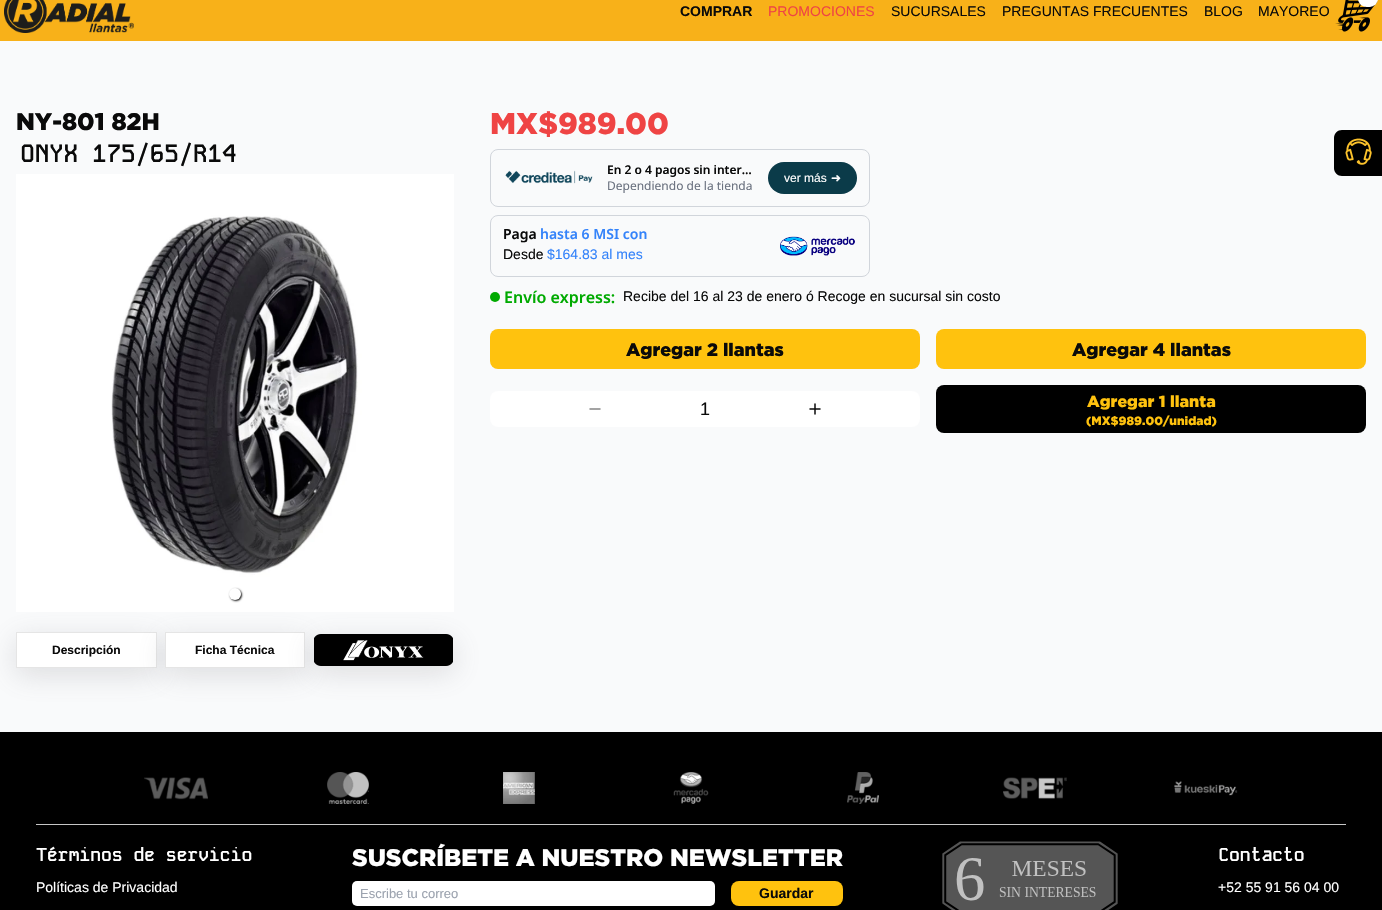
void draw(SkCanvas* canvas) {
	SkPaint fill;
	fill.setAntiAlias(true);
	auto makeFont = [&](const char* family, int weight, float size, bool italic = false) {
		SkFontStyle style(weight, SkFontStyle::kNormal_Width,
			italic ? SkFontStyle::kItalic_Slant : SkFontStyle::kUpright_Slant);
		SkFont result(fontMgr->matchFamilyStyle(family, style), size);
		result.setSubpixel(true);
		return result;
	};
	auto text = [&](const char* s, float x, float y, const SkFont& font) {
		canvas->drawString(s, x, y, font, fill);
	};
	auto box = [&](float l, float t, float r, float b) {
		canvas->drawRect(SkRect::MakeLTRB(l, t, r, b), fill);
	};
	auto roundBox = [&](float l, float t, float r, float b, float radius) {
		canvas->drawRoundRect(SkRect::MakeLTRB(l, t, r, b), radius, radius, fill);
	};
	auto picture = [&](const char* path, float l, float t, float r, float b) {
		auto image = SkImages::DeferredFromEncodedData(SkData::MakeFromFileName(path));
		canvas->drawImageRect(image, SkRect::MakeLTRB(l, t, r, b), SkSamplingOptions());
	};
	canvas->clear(0xFFF9FAFB);
	fill.setColor(0xFFF8B119);
	box(0, 0, 1382, 41);
	picture("image0.png", 4, 0, 134, 33);
	picture("image1.png", 1335, 0, 1378, 32);
	fill.setColor(0xFFFFFFFF);
	roundBox(1358, -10, 1378, 7, 10);
	fill.setColor(0x3364646F);
	fill.setMaskFilter(SkMaskFilter::MakeBlur(kNormal_SkBlurStyle, 14.5f));
	canvas->drawRect(SkRect::MakeLTRB(16, 639, 157, 675), fill);
	fill.setMaskFilter(nullptr);
	fill.setColor(0xFFFFFFFF);
	canvas->drawRect(SkRect::MakeLTRB(16.5f, 632.5f, 156.5f, 667.5f), fill);
	fill.setStyle(SkPaint::kStroke_Style);
	fill.setStrokeWidth(1);
	fill.setColor(0xFFE5E5E5);
	canvas->drawRect(SkRect::MakeLTRB(16.5f, 632.5f, 156.5f, 667.5f), fill);
	fill.setStyle(SkPaint::kFill_Style);
	fill.setColor(0x3364646F);
	fill.setMaskFilter(SkMaskFilter::MakeBlur(kNormal_SkBlurStyle, 14.5f));
	canvas->drawRect(SkRect::MakeLTRB(165, 639, 305, 675), fill);
	fill.setMaskFilter(nullptr);
	fill.setColor(0xFFFFFFFF);
	canvas->drawRect(SkRect::MakeLTRB(165.5f, 632.5f, 304.5f, 667.5f), fill);
	fill.setStyle(SkPaint::kStroke_Style);
	fill.setColor(0xFFE5E5E5);
	canvas->drawRect(SkRect::MakeLTRB(165.5f, 632.5f, 304.5f, 667.5f), fill);
	fill.setStyle(SkPaint::kFill_Style);
	fill.setColor(0x3364646F);
	fill.setMaskFilter(SkMaskFilter::MakeBlur(kNormal_SkBlurStyle, 14.5f));
	canvas->drawRoundRect(SkRect::MakeLTRB(313, 641, 454, 673), 8, 8, fill);
	fill.setMaskFilter(nullptr);
	picture("image2.png", 16, 174, 454, 612);
	fill.setColor(0xE6000000);
	fill.setMaskFilter(SkMaskFilter::MakeBlur(kNormal_SkBlurStyle, 1));
	canvas->drawRoundRect(SkRect::MakeLTRB(230, 589, 242, 601), 6, 6, fill);
	fill.setMaskFilter(nullptr);
	fill.setColor(0xFFFFFFFF);
	canvas->drawCircle(235, 594, 6, fill);
	picture("image3.png", 314, 634, 453, 666);
	fill.setStyle(SkPaint::kStroke_Style);
	fill.setColor(0xFFD1D5DB);
	canvas->drawRoundRect(SkRect::MakeLTRB(490.5f, 149.5f, 869.5f, 206.5f), 7.5f, 7.5f, fill);
	picture("image4.png", 505, 170, 593, 184);
	fill.setStyle(SkPaint::kFill_Style);
	fill.setColor(0xFF0B3B49);
	roundBox(768, 162, 857, 194, 16);
	fill.setStyle(SkPaint::kStroke_Style);
	fill.setColor(0xFFD1D5DB);
	canvas->drawRoundRect(SkRect::MakeLTRB(490.5f, 215.5f, 869.5f, 276.5f), 7.5f, 7.5f, fill);
	picture("image5.png", 780, 236, 855, 256);
	fill.setStyle(SkPaint::kFill_Style);
	fill.setColor(0xFF00AA00);
	canvas->drawCircle(495, 297, 5, fill);
	fill.setColor(0xFFFFC20E);
	roundBox(490, 329, 920, 369, 8);
	roundBox(936, 329, 1366, 369, 8);
	fill.setColor(0xFFFFFFFF);
	roundBox(490, 391, 920, 427, 8);
	fill.setStyle(SkPaint::kStroke_Style);
	fill.setStrokeWidth(1.5f);
	fill.setStrokeCap(SkPaint::kRound_Cap);
	fill.setStrokeJoin(SkPaint::kRound_Join);
	fill.setColor(0xFF858585);
	canvas->drawPath(SkPathBuilder().moveTo(590, 409).lineTo(600, 409).detach(), fill);
	fill.setColor(0xFF0A0A0A);
	canvas->drawPath(SkPathBuilder().moveTo(815, 404).lineTo(815, 414).moveTo(810, 409).lineTo(820, 409).detach(), fill);
	fill.setStyle(SkPaint::kFill_Style);
	fill.setColor(0xFF000000);
	roundBox(936, 385, 1366, 433, 8);
	canvas->drawPath(SkPathBuilder().moveTo(1342, 130).lineTo(1382, 130).lineTo(1382, 176).lineTo(1342, 176).cubicTo(1337.5f, 176, 1334, 172.5f, 1334, 168).lineTo(1334, 138).cubicTo(1334, 133.5f, 1337.5f, 130, 1342, 130).close().detach(), fill);
	picture("image6.png", 1345, 138, 1372, 165);
	box(0, 732, 1382, 910);
	picture("image7.png", 144, 777, 208, 800);
	picture("image8.png", 327, 772, 369, 804);
	picture("image9.png", 503, 772, 535, 804);
	picture("image10.png", 673, 772, 709, 804);
	picture("image11.png", 847, 772, 879, 804);
	picture("image12.png", 1003, 777, 1067, 799);
	picture("image13.png", 1174, 781, 1238, 796);
	fill.setColor(0xFFC6C6C6);
	box(36, 824, 1346, 825);
	fill.setColor(0xFFFFFFFF);
	roundBox(352, 881, 715, 906, 5);
	fill.setColor(0xFFFFC20E);
	roundBox(731, 881, 843, 906, 8);
	picture("image14.png", 942, 841, 1118, 910);
	auto font1 = makeFont("Liberation Sans", 700, 14);
	fill.setColor(0xFF0A0A0A);
	text("COMPRAR", 680, 16, font1);
	auto font2 = makeFont("Liberation Sans", 400, 14);
	fill.setColor(0xFFEF4444);
	text("PROMOCIONES", 768, 16, font2);
	fill.setColor(0xFF0A0A0A);
	text("SUCURSALES", 891, 16, font2);
	text("PREGUNTAS FRECUENTES", 1002, 16, font2);
	text("BLOG", 1204, 16, font2);
	text("MAYOREO", 1258, 16, font2);
	auto font3 = makeFont("Gotham", 900, 24);
	text("NY-801 82H", 16, 130, font3);
	auto font4 = makeFont("Kode Mono", 700, 24);
	text("ONYX 175/65/R14", 20, 162, font4);
	auto font5 = makeFont("Liberation Sans", 700, 12);
	text("Descripción", 52, 654, font5);
	text("Ficha Técnica", 195, 654, font5);
	auto font6 = makeFont("Gotham", 900, 30);
	fill.setColor(0xFFEF4444);
	text("MX$989.00", 490, 134, font6);
	auto font7 = makeFont("Noto Sans", 600, 12);
	fill.setColor(0xFF0A0A0A);
	text("En 2 o 4 pagos sin inter…", 607, 174, font7);
	auto font8 = makeFont("Noto Sans", 400, 12);
	fill.setColor(0xFF6B7280);
	text("Dependiendo de la tienda", 607, 190, font8);
	auto font9 = makeFont("Liberation Sans", 400, 12);
	fill.setColor(0xFFFFFFFF);
	text("ver más", 784, 182, font9);
	auto font10 = makeFont("DejaVu Sans", 400, 12);
	text("➜", 831, 182, font10);
	auto font11 = makeFont("Noto Sans", 600, 14);
	fill.setColor(0xFF0A0A0A);
	text("Paga", 503, 239, font11);
	fill.setColor(0xFF3483FA);
	text("hasta 6 MSI con", 540, 239, font11);
	fill.setColor(0xFF0A0A0A);
	text("Desde", 503, 259, font2);
	fill.setColor(0xFF3483FA);
	text("$164.83 al mes", 547, 259, font2);
	auto font12 = makeFont("Noto Sans", 600, 16);
	fill.setColor(0xFF00AA00);
	text("Envío express:", 504, 303, font12);
	fill.setColor(0xFF0A0A0A);
	text("Recibe del 16 al 23 de enero ó Recoge en sucursal sin costo", 623, 301, font2);
	auto font13 = makeFont("Gotham", 900, 18);
	text("Agregar 2 llantas", 626, 356, font13);
	text("Agregar 4 llantas", 1072, 356, font13);
	auto font14 = makeFont("Liberation Sans", 400, 18);
	text("1", 700, 415, font14);
	auto font15 = makeFont("Gotham", 900, 16);
	fill.setColor(0xFFFFC20E);
	text("Agregar 1 llanta", 1087, 407, font15);
	auto font16 = makeFont("Gotham", 900, 12);
	text("(MX$989.00/unidad)", 1086, 425, font16);
	auto font17 = makeFont("Kode Mono", 700, 18);
	fill.setColor(0xFFFFFFFF);
	text("Términos de servicio", 36, 861, font17);
	text("Políticas de Privacidad", 36, 892, font2);
	text("SUSCRÍBETE A NUESTRO NEWSLETTER", 352, 866, font3);
	auto font18 = makeFont("Liberation Sans", 400, 13);
	fill.setColor(0xFF9CA3AF);
	text("Escribe tu correo", 360, 898, font18);
	fill.setColor(0xFF0A0A0A);
	text("Guardar", 759, 898, font1);
	fill.setColor(0xFFFFFFFF);
	text("Contacto", 1218, 861, font17);
	text("+52 55 91 56 04 00", 1218, 892, font2);
}
